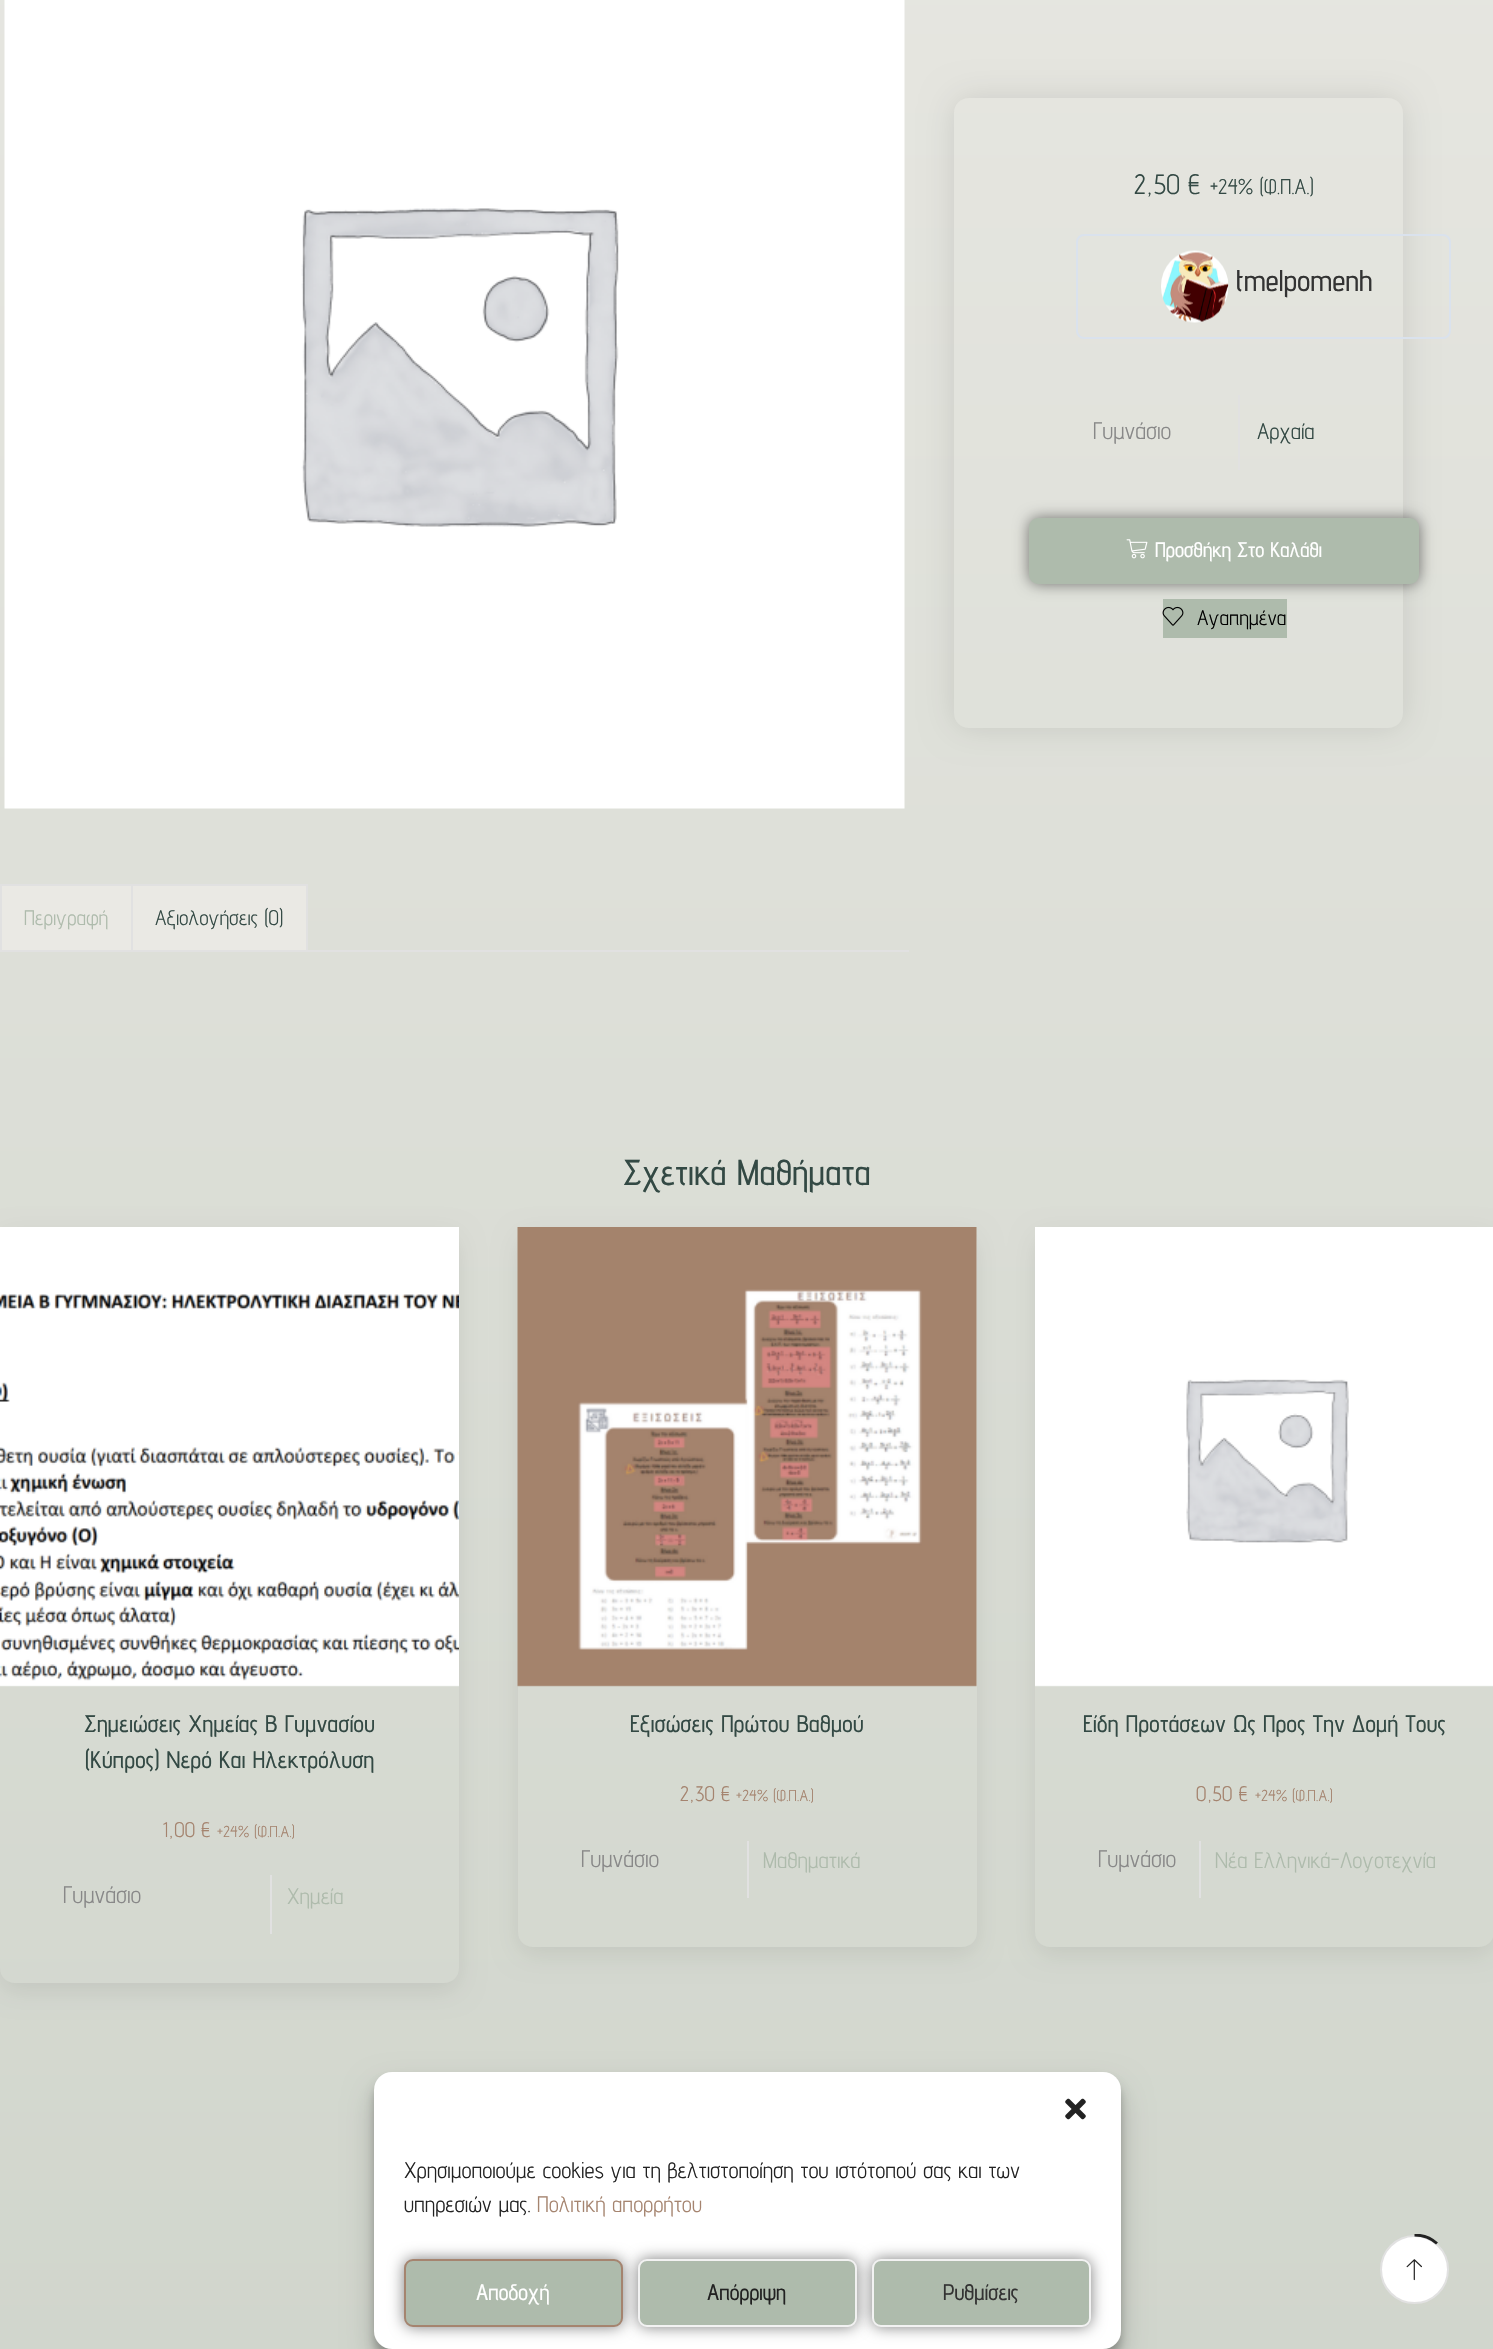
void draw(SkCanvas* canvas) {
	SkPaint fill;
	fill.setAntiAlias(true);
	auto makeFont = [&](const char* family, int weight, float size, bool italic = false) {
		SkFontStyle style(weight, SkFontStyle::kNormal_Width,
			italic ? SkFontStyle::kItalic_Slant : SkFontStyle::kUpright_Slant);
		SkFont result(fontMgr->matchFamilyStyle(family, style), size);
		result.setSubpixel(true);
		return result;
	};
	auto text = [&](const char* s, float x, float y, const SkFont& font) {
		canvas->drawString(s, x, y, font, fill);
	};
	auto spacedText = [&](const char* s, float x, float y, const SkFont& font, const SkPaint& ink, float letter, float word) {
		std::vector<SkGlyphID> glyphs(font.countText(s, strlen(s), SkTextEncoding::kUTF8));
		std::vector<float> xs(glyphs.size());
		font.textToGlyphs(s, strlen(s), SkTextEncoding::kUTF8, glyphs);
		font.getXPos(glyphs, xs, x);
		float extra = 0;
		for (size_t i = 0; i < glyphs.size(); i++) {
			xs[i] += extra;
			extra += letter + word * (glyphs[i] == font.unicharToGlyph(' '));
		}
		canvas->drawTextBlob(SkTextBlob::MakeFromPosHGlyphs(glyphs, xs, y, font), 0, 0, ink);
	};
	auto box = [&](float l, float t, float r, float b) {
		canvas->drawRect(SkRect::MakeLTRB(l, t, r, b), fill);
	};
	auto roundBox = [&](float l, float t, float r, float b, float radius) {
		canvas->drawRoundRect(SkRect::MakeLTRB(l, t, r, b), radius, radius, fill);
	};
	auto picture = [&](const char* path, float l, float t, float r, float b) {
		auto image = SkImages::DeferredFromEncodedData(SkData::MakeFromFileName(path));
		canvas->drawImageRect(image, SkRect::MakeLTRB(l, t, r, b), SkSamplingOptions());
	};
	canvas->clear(0xFFFFFFFF);
	{
		const SkColor colors[] = {0xFFEAE9E4, 0xFFAEBBAC};
		const float stops[] = {0, 1};
		const SkPoint ends[] = {{747, -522}, {747, 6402}};
		fill.setShader(SkGradientShader::MakeLinear(ends, colors, stops, 2, SkTileMode::kClamp));
		fill.setAlpha(255);
	}
	box(0, 0, 1493, 2349);
	picture("image3.png", 4, 0, 905, 809);
	canvas->save();
	canvas->clipPath(SkPathBuilder(SkPathFillType::kEvenOdd).moveTo(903, 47).lineTo(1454, 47).lineTo(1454, 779).lineTo(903, 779).close().moveTo(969, 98).lineTo(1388, 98).cubicTo(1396.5f, 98, 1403, 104.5f, 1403, 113).lineTo(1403, 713).cubicTo(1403, 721.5f, 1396.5f, 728, 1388, 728).lineTo(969, 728).cubicTo(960.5f, 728, 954, 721.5f, 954, 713).lineTo(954, 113).cubicTo(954, 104.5f, 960.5f, 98, 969, 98).close().detach(), true);
	fill.setShader(nullptr);
	fill.setColor(0x1C000000);
	fill.setMaskFilter(SkMaskFilter::MakeBlur(kNormal_SkBlurStyle, 16.5f));
	canvas->drawRoundRect(SkRect::MakeLTRB(954, 98, 1403, 728), 15, 15, fill);
	fill.setMaskFilter(nullptr);
	canvas->restore();
	fill.setStyle(SkPaint::kStroke_Style);
	fill.setStrokeWidth(2);
	fill.setColor(0xFFDAE2ED);
	canvas->drawRoundRect(SkRect::MakeLTRB(1077, 235, 1450, 338), 7, 7, fill);
	picture("image0.png", 1161, 250, 1229, 323);
	fill.setStyle(SkPaint::kFill_Style);
	fill.setColor(0xFFE1E1E1);
	box(1238, 395, 1240, 470);
	fill.setColor(0x80000000);
	fill.setMaskFilter(SkMaskFilter::MakeBlur(kNormal_SkBlurStyle, 7.5f));
	canvas->drawRoundRect(SkRect::MakeLTRB(1029, 518, 1419, 584), 9, 9, fill);
	fill.setMaskFilter(nullptr);
	fill.setColor(0xFFAEBBAC);
	roundBox(1029, 518, 1419, 584, 9);
	picture("image1.png", 1126, 539, 1148, 559);
	box(1163, 599, 1287, 638);
	picture("image2.png", 1162, 606, 1184, 626);
	fill.setColor(0xFFEAE9E4);
	box(2, 886, 131, 950);
	fill.setColor(0xFFE1E1E1);
	box(0, 884, 308, 886);
	box(0, 884, 2, 951);
	fill.setColor(0xFFEAE9E4);
	box(133, 886, 306, 950);
	fill.setColor(0xFFE1E1E1);
	box(306, 884, 308, 951);
	box(131, 884, 133, 951);
	box(0, 950, 909, 952);
	canvas->save();
	canvas->clipPath(SkPathBuilder(SkPathFillType::kEvenOdd).moveTo(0, 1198).lineTo(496, 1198).lineTo(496, 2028).lineTo(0, 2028).close().moveTo(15, 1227).lineTo(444, 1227).cubicTo(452.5f, 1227, 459, 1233.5f, 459, 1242).lineTo(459, 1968).cubicTo(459, 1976.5f, 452.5f, 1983, 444, 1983).lineTo(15, 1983).cubicTo(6.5f, 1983, 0, 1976.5f, 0, 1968).lineTo(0, 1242).cubicTo(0, 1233.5f, 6.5f, 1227, 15, 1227).close().detach(), true);
	fill.setColor(0x14000000);
	fill.setMaskFilter(SkMaskFilter::MakeBlur(kNormal_SkBlurStyle, 12));
	canvas->drawRoundRect(SkRect::MakeLTRB(0, 1235, 459, 1991), 15, 15, fill);
	fill.setMaskFilter(nullptr);
	canvas->restore();
	picture("image4.png", 0, 1227, 459, 1687);
	fill.setColor(0xFFE1E1E1);
	box(270, 1875, 272, 1934);
	canvas->save();
	canvas->clipPath(SkPathBuilder(SkPathFillType::kEvenOdd).moveTo(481, 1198).lineTo(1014, 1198).lineTo(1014, 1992).lineTo(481, 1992).close().moveTo(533, 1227).lineTo(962, 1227).cubicTo(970.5f, 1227, 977, 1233.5f, 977, 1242).lineTo(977, 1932).cubicTo(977, 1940.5f, 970.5f, 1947, 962, 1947).lineTo(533, 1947).cubicTo(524.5f, 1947, 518, 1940.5f, 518, 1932).lineTo(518, 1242).cubicTo(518, 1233.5f, 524.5f, 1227, 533, 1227).close().detach(), true);
	fill.setColor(0x14000000);
	fill.setMaskFilter(SkMaskFilter::MakeBlur(kNormal_SkBlurStyle, 12));
	canvas->drawRoundRect(SkRect::MakeLTRB(518, 1235, 977, 1955), 15, 15, fill);
	fill.setMaskFilter(nullptr);
	canvas->restore();
	picture("image5.png", 517, 1227, 977, 1687);
	fill.setColor(0xFFE1E1E1);
	box(747, 1841, 749, 1898);
	canvas->save();
	canvas->clipPath(SkPathBuilder(SkPathFillType::kEvenOdd).moveTo(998, 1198).lineTo(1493, 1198).lineTo(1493, 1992).lineTo(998, 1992).close().moveTo(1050, 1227).lineTo(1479, 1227).cubicTo(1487.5f, 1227, 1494, 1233.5f, 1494, 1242).lineTo(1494, 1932).cubicTo(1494, 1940.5f, 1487.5f, 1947, 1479, 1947).lineTo(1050, 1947).cubicTo(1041.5f, 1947, 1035, 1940.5f, 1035, 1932).lineTo(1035, 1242).cubicTo(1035, 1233.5f, 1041.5f, 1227, 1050, 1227).close().detach(), true);
	fill.setColor(0x14000000);
	fill.setMaskFilter(SkMaskFilter::MakeBlur(kNormal_SkBlurStyle, 12));
	canvas->drawRoundRect(SkRect::MakeLTRB(1035, 1235, 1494, 1955), 15, 15, fill);
	fill.setMaskFilter(nullptr);
	canvas->restore();
	picture("image6.png", 1035, 1227, 1493, 1687);
	fill.setColor(0xFFE1E1E1);
	box(1199, 1841, 1201, 1898);
	fill.setColor(0xFFFFFFFF);
	canvas->drawCircle(1414.5f, 2269.5f, 33.5f, fill);
	fill.setStyle(SkPaint::kStroke_Style);
	fill.setColor(0xFFE1E1E1);
	canvas->drawCircle(1414.5f, 2269.5f, 33.5f, fill);
	canvas->save();
	canvas->clipRect(SkRect::MakeLTRB(1379, 2234, 1451, 2306));
	fill.setStrokeWidth(2.8f);
	fill.setColor(0xFF222222);
	canvas->drawPath(SkPathBuilder().moveTo(1414.5f, 2235).cubicTo(1423, 2235, 1431, 2238, 1437, 2243.5f).detach(), fill);
	canvas->restore();
	picture("image7.png", 1406, 2259, 1422, 2281);
	fill.setStyle(SkPaint::kFill_Style);
	fill.setColor(0x3B000000);
	fill.setMaskFilter(SkMaskFilter::MakeBlur(kNormal_SkBlurStyle, 4.5f));
	canvas->drawRoundRect(SkRect::MakeLTRB(374, 2081, 1121, 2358), 18, 18, fill);
	fill.setMaskFilter(nullptr);
	fill.setColor(0x30000000);
	fill.setMaskFilter(SkMaskFilter::MakeBlur(kNormal_SkBlurStyle, 15));
	canvas->drawRoundRect(SkRect::MakeLTRB(374, 2087, 1121, 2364), 18, 18, fill);
	fill.setMaskFilter(nullptr);
	fill.setColor(0xFFFFFFFF);
	roundBox(374, 2072, 1121, 2349, 18);
	picture("image8.png", 1065, 2098, 1086, 2120);
	fill.setColor(0x80000000);
	fill.setMaskFilter(SkMaskFilter::MakeBlur(kNormal_SkBlurStyle, 7.5f));
	canvas->drawRoundRect(SkRect::MakeLTRB(404, 2259, 623, 2327), 9, 9, fill);
	fill.setMaskFilter(nullptr);
	fill.setColor(0xFFAEBBAC);
	canvas->drawRoundRect(SkRect::MakeLTRB(405, 2260, 622, 2326), 8, 8, fill);
	fill.setStyle(SkPaint::kStroke_Style);
	fill.setStrokeWidth(2);
	fill.setColor(0xFFA5846F);
	canvas->drawRoundRect(SkRect::MakeLTRB(405, 2260, 622, 2326), 8, 8, fill);
	fill.setStyle(SkPaint::kFill_Style);
	fill.setColor(0x80000000);
	fill.setMaskFilter(SkMaskFilter::MakeBlur(kNormal_SkBlurStyle, 7.5f));
	canvas->drawRoundRect(SkRect::MakeLTRB(638, 2259, 857, 2327), 9, 9, fill);
	fill.setMaskFilter(nullptr);
	fill.setColor(0xFFAEBBAC);
	canvas->drawRoundRect(SkRect::MakeLTRB(639, 2260, 856, 2326), 8, 8, fill);
	fill.setStyle(SkPaint::kStroke_Style);
	fill.setColor(0xFFF2F2F2);
	canvas->drawRoundRect(SkRect::MakeLTRB(639, 2260, 856, 2326), 8, 8, fill);
	fill.setStyle(SkPaint::kFill_Style);
	fill.setColor(0x80000000);
	fill.setMaskFilter(SkMaskFilter::MakeBlur(kNormal_SkBlurStyle, 7.5f));
	canvas->drawRoundRect(SkRect::MakeLTRB(872, 2259, 1091, 2327), 9, 9, fill);
	fill.setMaskFilter(nullptr);
	fill.setColor(0xFFAEBBAC);
	canvas->drawRoundRect(SkRect::MakeLTRB(873, 2260, 1090, 2326), 8, 8, fill);
	fill.setStyle(SkPaint::kStroke_Style);
	fill.setColor(0xFFF2F2F2);
	canvas->drawRoundRect(SkRect::MakeLTRB(873, 2260, 1090, 2326), 8, 8, fill);
	auto font1 = makeFont("Advent Pro", 400, 28);
	fill.setStyle(SkPaint::kFill_Style);
	fill.setColor(0xFF334944);
	spacedText("2,50 €", 1134, 194, font1, fill, 0.3f, 0);
	auto font2 = makeFont("Advent Pro", 400, 21.25f);
	spacedText("+24% (Φ.Π.Α.)", 1210, 194, font2, fill, 0.3f, 0);
	auto font3 = makeFont("Advent Pro", 500, 30);
	fill.setColor(0xFF333333);
	spacedText("tmelpomenh", 1236, 291, font3, fill, 0.3f, 0);
	auto font4 = makeFont("Advent Pro", 400, 24);
	fill.setColor(0xFF888888);
	spacedText("Γυμνάσιο", 1093, 439, font4, fill, 0.3f, 0);
	auto font5 = makeFont("Advent Pro", 400, 22.5f);
	fill.setColor(0xFF334944);
	spacedText("Αρχαία", 1257, 439, font5, fill, 0.3f, 0);
	auto font6 = makeFont("Advent Pro", 500, 21);
	fill.setColor(0xFFFFFFFF);
	text("Προσθήκη Στο Καλάθι", 1155, 557, font6);
	auto font7 = makeFont("Advent Pro", 400, 21);
	fill.setColor(0xFF000000);
	spacedText("Αγαπημένα", 1197, 625, font7, fill, 0.3f, 0);
	fill.setColor(0xFFAEBBAC);
	spacedText("Περιγραφή", 24, 925, font7, fill, 0.3f, 0);
	fill.setColor(0xFF334944);
	spacedText("Αξιολογήσεις (0)", 155, 925, font7, fill, 0.3f, 0);
	auto font8 = makeFont("Advent Pro", 500, 36);
	spacedText("Σχετικά Μαθήματα", 623, 1185, font8, fill, 0.3f, 0);
	auto font9 = makeFont("Advent Pro", 500, 24);
	spacedText("Σημειώσεις Χημείας Β Γυμνασίου", 84, 1732, font9, fill, 0.3f, 0);
	spacedText("(Κύπρος) Νερό Και Ηλεκτρόλυση", 85, 1768, font9, fill, 0.3f, 0);
	fill.setColor(0xFFA5846F);
	spacedText("1,00 €", 163, 1837, font7, fill, 0.3f, 0);
	auto font10 = makeFont("Advent Pro", 400, 15.75f);
	spacedText("+24% (Φ.Π.Α.)", 217, 1837, font10, fill, 0.3f, 0);
	fill.setColor(0xFF888888);
	spacedText("Γυμνάσιο", 63, 1903, font4, fill, 0.3f, 0);
	fill.setColor(0xFFAEBBAC);
	spacedText("Χημεία", 287, 1904, font5, fill, 0.3f, 0);
	fill.setColor(0xFF334944);
	spacedText("Εξισώσεις Πρώτου Βαθμού", 630, 1732, font9, fill, 0.3f, 0);
	fill.setColor(0xFFA5846F);
	spacedText("2,30 €", 680, 1801, font7, fill, 0.3f, 0);
	spacedText("+24% (Φ.Π.Α.)", 736, 1801, font10, fill, 0.3f, 0);
	fill.setColor(0xFF888888);
	spacedText("Γυμνάσιο", 581, 1867, font4, fill, 0.3f, 0);
	fill.setColor(0xFFAEBBAC);
	spacedText("Μαθηματικά", 763, 1868, font5, fill, 0.3f, 0);
	fill.setColor(0xFF334944);
	spacedText("Είδη Προτάσεων Ως Προς Την Δομή Τους", 1083, 1732, font9, fill, 0.3f, 0);
	fill.setColor(0xFFA5846F);
	spacedText("0,50 €", 1196, 1801, font7, fill, 0.3f, 0);
	spacedText("+24% (Φ.Π.Α.)", 1255, 1801, font10, fill, 0.3f, 0);
	fill.setColor(0xFF888888);
	spacedText("Γυμνάσιο", 1098, 1867, font4, fill, 0.3f, 0);
	fill.setColor(0xFFAEBBAC);
	spacedText("Νέα Ελληνικά-Λογοτεχνία", 1215, 1868, font5, fill, 0.3f, 0);
	fill.setColor(0xFF222222);
	spacedText("Χρησιμοποιούμε cookies για τη βελτιστοποίηση του ιστότοπού σας και των", 404, 2178, font5, fill, 0.3f, 0);
	spacedText("υπηρεσιών μας.", 404, 2212, font5, fill, 0.3f, 0);
	fill.setColor(0xFFA5846F);
	spacedText("Πολιτική απορρήτου", 537, 2212, font5, fill, 0.3f, 0);
	auto font11 = makeFont("Advent Pro", 500, 22.5f);
	fill.setColor(0xFFFFFFFF);
	text("Αποδοχή", 476, 2300, font11);
	fill.setColor(0xFF222222);
	text("Απόρριψη", 707, 2300, font11);
	fill.setColor(0xFF333333);
	text("Ρυθμίσεις", 943, 2300, font11);
}
